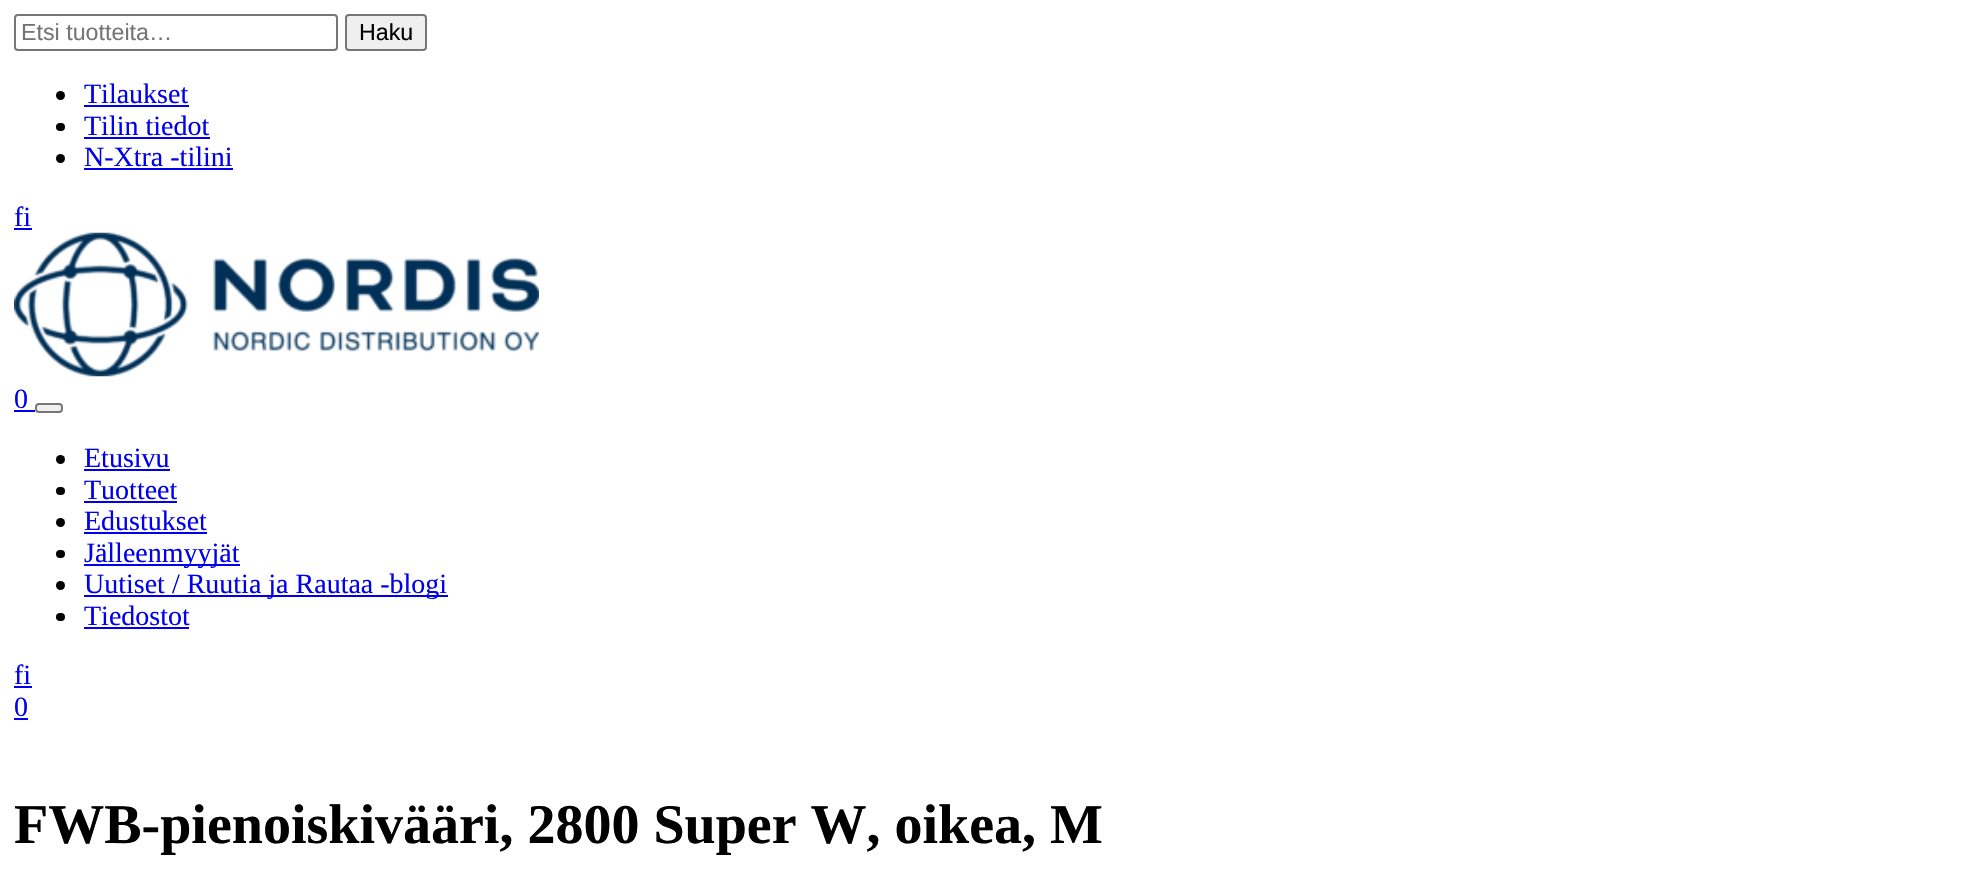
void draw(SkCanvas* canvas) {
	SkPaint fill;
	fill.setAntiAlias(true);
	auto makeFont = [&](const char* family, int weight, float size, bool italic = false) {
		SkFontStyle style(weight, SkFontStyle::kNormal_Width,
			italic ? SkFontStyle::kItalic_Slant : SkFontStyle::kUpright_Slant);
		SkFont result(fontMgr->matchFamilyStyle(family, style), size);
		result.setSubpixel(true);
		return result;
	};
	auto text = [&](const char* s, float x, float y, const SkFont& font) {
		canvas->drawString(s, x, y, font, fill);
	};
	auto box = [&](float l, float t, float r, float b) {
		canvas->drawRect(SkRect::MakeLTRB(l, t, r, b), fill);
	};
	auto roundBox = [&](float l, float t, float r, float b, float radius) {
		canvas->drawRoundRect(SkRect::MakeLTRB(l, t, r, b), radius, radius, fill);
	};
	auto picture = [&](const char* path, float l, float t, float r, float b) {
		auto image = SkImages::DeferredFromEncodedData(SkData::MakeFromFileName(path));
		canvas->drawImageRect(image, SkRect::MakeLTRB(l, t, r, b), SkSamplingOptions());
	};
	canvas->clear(0xFFFFFFFF);
	fill.setStyle(SkPaint::kStroke_Style);
	fill.setStrokeWidth(2);
	fill.setColor(0xFF767676);
	canvas->drawRoundRect(SkRect::MakeLTRB(15, 15, 337, 50), 3, 3, fill);
	fill.setStyle(SkPaint::kFill_Style);
	fill.setColor(0xFFEFEFEF);
	canvas->drawRoundRect(SkRect::MakeLTRB(346, 15, 426, 50), 3, 3, fill);
	fill.setStyle(SkPaint::kStroke_Style);
	fill.setColor(0xFF767676);
	canvas->drawRoundRect(SkRect::MakeLTRB(346, 15, 426, 50), 3, 3, fill);
	fill.setStyle(SkPaint::kFill_Style);
	fill.setColor(0xFF000000);
	canvas->drawCircle(60.5f, 95.5f, 4.5f, fill);
	fill.setColor(0xFF0000EE);
	box(84, 105, 189, 107);
	fill.setColor(0xFF000000);
	roundBox(56, 123, 65, 131, 4);
	fill.setColor(0xFF0000EE);
	box(84, 137, 210, 139);
	fill.setColor(0xFF000000);
	canvas->drawCircle(60.5f, 158.5f, 4.5f, fill);
	fill.setColor(0xFF0000EE);
	box(84, 168, 233, 170);
	box(14, 228, 32, 230);
	picture("image0.png", 14, 232, 539, 377);
	box(14, 410, 35, 412);
	fill.setColor(0xFFEFEFEF);
	canvas->drawRoundRect(SkRect::MakeLTRB(36, 404, 62, 412), 3, 3, fill);
	fill.setStyle(SkPaint::kStroke_Style);
	fill.setColor(0xFF767676);
	canvas->drawRoundRect(SkRect::MakeLTRB(36, 404, 62, 412), 3, 3, fill);
	fill.setStyle(SkPaint::kFill_Style);
	fill.setColor(0xFF000000);
	canvas->drawCircle(60.5f, 459.5f, 4.5f, fill);
	fill.setColor(0xFF0000EE);
	box(84, 469, 170, 471);
	fill.setColor(0xFF000000);
	roundBox(56, 487, 65, 495, 4);
	fill.setColor(0xFF0000EE);
	box(84, 501, 177, 503);
	fill.setColor(0xFF000000);
	canvas->drawCircle(60.5f, 522.5f, 4.5f, fill);
	fill.setColor(0xFF0000EE);
	box(84, 532, 207, 534);
	fill.setColor(0xFF000000);
	roundBox(56, 550, 65, 558, 4);
	fill.setColor(0xFF0000EE);
	box(84, 564, 240, 566);
	fill.setColor(0xFF000000);
	canvas->drawCircle(60.5f, 585.5f, 4.5f, fill);
	fill.setColor(0xFF0000EE);
	box(84, 595, 448, 597);
	fill.setColor(0xFF000000);
	roundBox(56, 613, 65, 621, 4);
	fill.setColor(0xFF0000EE);
	box(84, 627, 189, 629);
	box(14, 686, 32, 688);
	box(14, 718, 28, 720);
	auto font1 = makeFont("Liberation Sans", 400, 23.25f);
	fill.setColor(0xFF757575);
	text("Etsi tuotteita…", 21, 40, font1);
	fill.setColor(0xFF000000);
	text("Haku", 359, 40, font1);
	auto font2 = makeFont("Liberation Serif", 400, 28);
	fill.setColor(0xFF0000EE);
	text("Tilaukset", 84, 103, font2);
	text("Tilin tiedot", 84, 135, font2);
	text("N-Xtra -tilini", 84, 166, font2);
	text("fi", 14, 226, font2);
	text("0", 14, 408, font2);
	text("Etusivu", 84, 467, font2);
	text("Tuotteet", 84, 499, font2);
	text("Edustukset", 84, 530, font2);
	text("Jälleenmyyjät", 84, 562, font2);
	text("Uutiset / Ruutia ja Rautaa -blogi", 84, 593, font2);
	text("Tiedostot", 84, 625, font2);
	text("fi", 14, 684, font2);
	text("0", 14, 716, font2);
	auto font3 = makeFont("Liberation Serif", 700, 56);
	fill.setColor(0xFF000000);
	text("FWB-pienoiskivääri, 2800 Super W, oikea, M", 14, 843, font3);
}
